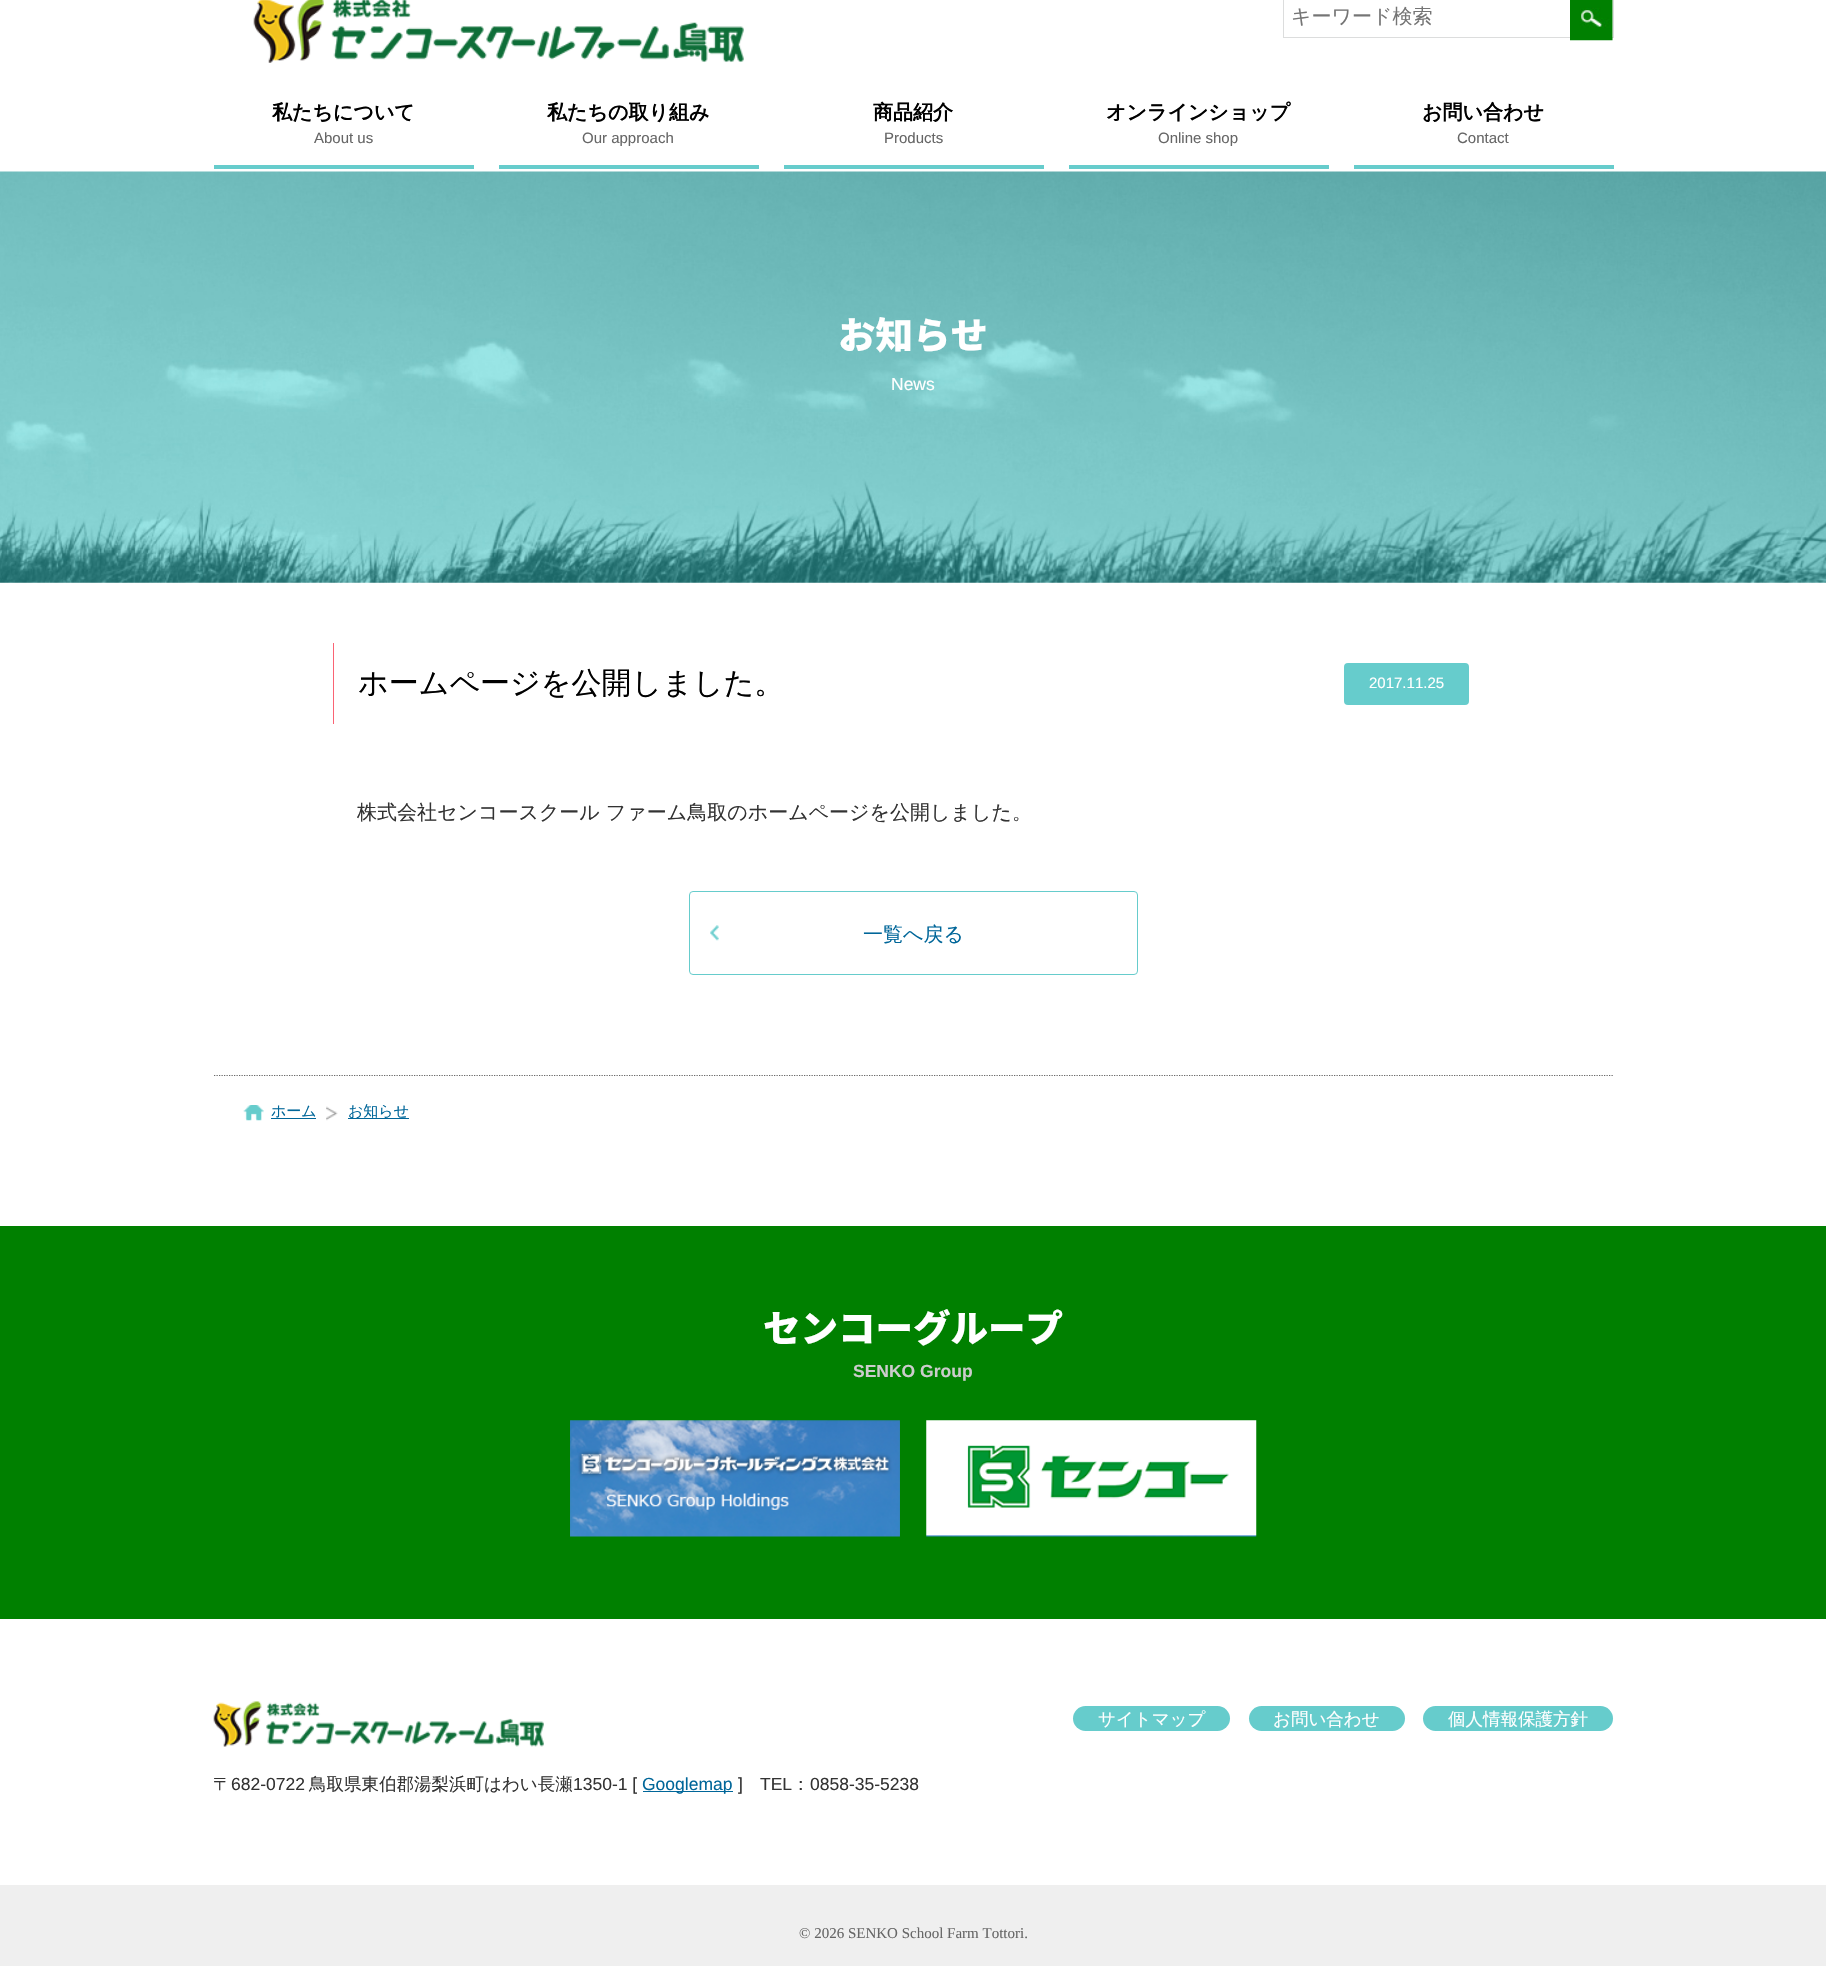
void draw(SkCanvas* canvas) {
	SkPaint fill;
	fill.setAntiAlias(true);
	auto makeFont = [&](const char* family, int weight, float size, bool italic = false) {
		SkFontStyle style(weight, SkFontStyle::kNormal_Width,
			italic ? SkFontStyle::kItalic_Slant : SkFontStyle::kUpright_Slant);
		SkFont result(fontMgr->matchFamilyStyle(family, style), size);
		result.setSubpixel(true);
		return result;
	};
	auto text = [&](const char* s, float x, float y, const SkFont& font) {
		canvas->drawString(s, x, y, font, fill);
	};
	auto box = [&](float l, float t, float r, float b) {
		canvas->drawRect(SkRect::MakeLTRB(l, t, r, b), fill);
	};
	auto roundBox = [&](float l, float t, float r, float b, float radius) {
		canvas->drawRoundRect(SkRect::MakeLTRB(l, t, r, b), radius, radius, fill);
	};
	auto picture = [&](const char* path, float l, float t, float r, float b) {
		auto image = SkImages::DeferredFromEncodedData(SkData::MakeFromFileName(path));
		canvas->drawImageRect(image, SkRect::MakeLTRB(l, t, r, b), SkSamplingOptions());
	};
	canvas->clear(0xFFFFFFFF);
	picture("image0.png", 253, 0, 744, 63);
	fill.setStyle(SkPaint::kStroke_Style);
	fill.setStrokeWidth(1);
	fill.setColor(0xFFDCDDDD);
	canvas->drawRect(SkRect::MakeLTRB(1283.5f, -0.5f, 1613.5f, 37.5f), fill);
	picture("image1.png", 1570, 0, 1613, 41);
	fill.setStyle(SkPaint::kFill_Style);
	fill.setColor(0xFF66CCCC);
	box(214, 165, 474, 169);
	box(499, 165, 759, 169);
	box(784, 165, 1044, 169);
	box(1069, 165, 1329, 169);
	box(1354, 165, 1614, 169);
	picture("image2.png", 0, 171, 1826, 583);
	fill.setColor(0xFFFA6374);
	box(333, 643, 334, 724);
	fill.setColor(0xFF66CCCC);
	roundBox(1344, 663, 1469, 705, 4);
	picture("image3.png", 710, 925, 719, 941);
	fill.setStyle(SkPaint::kStroke_Style);
	canvas->drawRoundRect(SkRect::MakeLTRB(689.5f, 891.5f, 1137.5f, 974.5f), 3.5f, 3.5f, fill);
	fill.setStrokeWidth(1.2f);
	fill.setColor(0xFF666666);
	fill.setPathEffect(SkDashPathEffect::Make({{1.25f, 1.25f}}, 0));
	canvas->drawPath(SkPathBuilder().moveTo(214, 1075.5f).lineTo(1614, 1075.5f).detach(), fill);
	fill.setPathEffect(nullptr);
	picture("image4.png", 243, 1105, 264, 1121);
	fill.setStyle(SkPaint::kFill_Style);
	fill.setColor(0xFF006699);
	box(271, 1118, 316, 1119);
	picture("image5.png", 326, 1106, 338, 1121);
	box(348, 1118, 409, 1119);
	fill.setColor(0xFF008000);
	box(0, 1226, 1826, 1619);
	picture("image6.png", 570, 1420, 900, 1537);
	picture("image7.png", 926, 1420, 1257, 1537);
	fill.setColor(0xFF66CCCC);
	roundBox(1073, 1706, 1230, 1731, 12.5f);
	roundBox(1249, 1706, 1405, 1731, 12.5f);
	roundBox(1423, 1706, 1613, 1731, 12.5f);
	picture("image8.png", 213, 1701, 544, 1747);
	fill.setColor(0xFF006699);
	box(643, 1791, 733, 1792);
	fill.setColor(0xFFEFEFEF);
	box(0, 1885, 1826, 1966);
	auto font1 = makeFont("WenQuanYi Zen Hei", 500, 20);
	fill.setColor(0xFF757575);
	text("キーワード検索", 1291, 23, font1);
	auto font2 = makeFont("WenQuanYi Zen Hei", 700, 20);
	fill.setColor(0xFF000000);
	text("私たちについて", 272, 119, font2);
	auto font3 = makeFont("Liberation Sans", 400, 15);
	fill.setColor(0xFF666666);
	text("About us", 314, 143, font3);
	fill.setColor(0xFF000000);
	text("私たちの取り組み", 547, 119, font2);
	fill.setColor(0xFF666666);
	text("Our approach", 582, 143, font3);
	fill.setColor(0xFF000000);
	text("商品紹介", 873, 119, font2);
	fill.setColor(0xFF666666);
	text("Products", 884, 143, font3);
	fill.setColor(0xFF000000);
	text("オンラインショップ", 1106, 119, font2);
	fill.setColor(0xFF666666);
	text("Online shop", 1158, 143, font3);
	fill.setColor(0xFF000000);
	text("お問い合わせ", 1422, 119, font2);
	fill.setColor(0xFF666666);
	text("Contact", 1457, 143, font3);
	auto font4 = makeFont("Noto Sans JP", 900, 37.5f);
	fill.setColor(0xFFFFFFFF);
	text("お知らせ", 838, 349, font4);
	auto font5 = makeFont("Liberation Sans", 400, 17.5f);
	text("News", 891, 390, font5);
	auto font6 = makeFont("WenQuanYi Zen Hei", 500, 30);
	fill.setColor(0xFF000000);
	text("ホームページを公開しました。", 358, 693, font6);
	fill.setColor(0xFFFFFFFF);
	text("2017.11.25", 1369, 688, font3);
	fill.setColor(0xFF333333);
	text("株式会社センコースクール ファーム鳥取のホームページを公開しました。", 357, 819, font1);
	fill.setColor(0xFF006699);
	text("一覧へ戻る", 863, 941, font1);
	auto font7 = makeFont("WenQuanYi Zen Hei", 500, 15);
	text("ホーム", 271, 1116, font7);
	text("お知らせ", 348, 1116, font7);
	fill.setColor(0xFFFFFFFF);
	text("センコーグループ", 763, 1342, font4);
	auto font8 = makeFont("Liberation Sans", 700, 17.5f);
	fill.setColor(0xFFCCCCCC);
	text("SENKO Group", 853, 1377, font8);
	auto font9 = makeFont("WenQuanYi Zen Hei", 500, 17.5f);
	fill.setColor(0xFFFFFFFF);
	text("サイトマップ", 1098, 1725, font9);
	text("お問い合わせ", 1273, 1725, font9);
	text("個人情報保護方針", 1448, 1725, font9);
	fill.setColor(0xFF333333);
	text("〒", 213, 1790, font9);
	text("682-0722", 231, 1790, font5);
	text("鳥取県東伯郡湯梨浜町はわい長瀬", 309, 1790, font9);
	text("1350-1 [", 573, 1790, font5);
	fill.setColor(0xFF006699);
	text("Googlemap", 642, 1790, font5);
	fill.setColor(0xFF333333);
	text("]", 738, 1790, font5);
	text("TEL", 760, 1790, font5);
	text("：", 792, 1790, font9);
	text("0858-35-5238", 810, 1790, font5);
	auto font10 = makeFont("Liberation Serif", 400, 15);
	fill.setColor(0xFF666666);
	text("© 2026 SENKO School Farm Tottori.", 799, 1938, font10);
}
